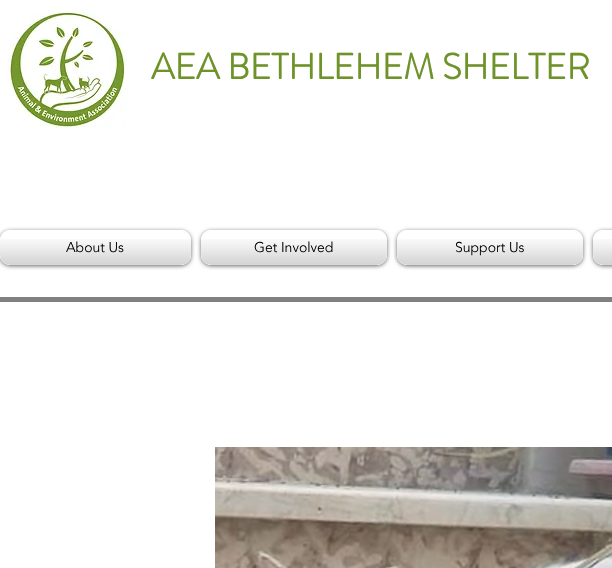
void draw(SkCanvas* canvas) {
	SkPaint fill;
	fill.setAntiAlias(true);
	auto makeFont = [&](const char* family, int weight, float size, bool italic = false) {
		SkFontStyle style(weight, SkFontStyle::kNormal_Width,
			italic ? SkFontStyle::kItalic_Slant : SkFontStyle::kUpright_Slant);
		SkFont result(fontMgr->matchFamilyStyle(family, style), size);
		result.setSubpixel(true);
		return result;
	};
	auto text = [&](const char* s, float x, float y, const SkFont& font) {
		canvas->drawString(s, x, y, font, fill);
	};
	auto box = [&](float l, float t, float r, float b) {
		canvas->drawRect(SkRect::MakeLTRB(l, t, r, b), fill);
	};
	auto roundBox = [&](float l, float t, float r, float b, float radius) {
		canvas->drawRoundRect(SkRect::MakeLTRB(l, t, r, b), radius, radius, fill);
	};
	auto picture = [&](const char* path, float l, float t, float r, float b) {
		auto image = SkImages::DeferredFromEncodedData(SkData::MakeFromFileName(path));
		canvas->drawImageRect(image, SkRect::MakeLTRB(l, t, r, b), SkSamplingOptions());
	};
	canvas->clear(0xFFFFFFFF);
	picture("image0.png", 8, 8, 127, 128);
	canvas->save();
	canvas->clipPath(SkPathBuilder(SkPathFillType::kEvenOdd).moveTo(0, 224).lineTo(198, 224).lineTo(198, 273).lineTo(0, 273).close().moveTo(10, 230).lineTo(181, 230).cubicTo(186.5f, 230, 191, 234.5f, 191, 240).lineTo(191, 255).cubicTo(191, 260.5f, 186.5f, 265, 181, 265).lineTo(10, 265).cubicTo(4.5f, 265, 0, 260.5f, 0, 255).lineTo(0, 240).cubicTo(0, 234.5f, 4.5f, 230, 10, 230).close().detach(), true);
	fill.setColor(0x99000000);
	fill.setMaskFilter(SkMaskFilter::MakeBlur(kNormal_SkBlurStyle, 2));
	canvas->drawRoundRect(SkRect::MakeLTRB(0, 231, 191, 266), 10, 10, fill);
	fill.setMaskFilter(nullptr);
	canvas->restore();
	fill.setColor(0xF0FFFFFF);
	roundBox(0, 230, 191, 265, 10);
	picture("image1.png", 0, 239, 191, 265);
	canvas->save();
	canvas->clipPath(SkPathBuilder(SkPathFillType::kEvenOdd).moveTo(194, 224).lineTo(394, 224).lineTo(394, 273).lineTo(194, 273).close().moveTo(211, 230).lineTo(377, 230).cubicTo(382.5f, 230, 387, 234.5f, 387, 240).lineTo(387, 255).cubicTo(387, 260.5f, 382.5f, 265, 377, 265).lineTo(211, 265).cubicTo(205.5f, 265, 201, 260.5f, 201, 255).lineTo(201, 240).cubicTo(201, 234.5f, 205.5f, 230, 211, 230).close().detach(), true);
	fill.setColor(0x99000000);
	fill.setMaskFilter(SkMaskFilter::MakeBlur(kNormal_SkBlurStyle, 2));
	canvas->drawRoundRect(SkRect::MakeLTRB(201, 231, 387, 266), 10, 10, fill);
	fill.setMaskFilter(nullptr);
	canvas->restore();
	fill.setColor(0xF0FFFFFF);
	roundBox(201, 230, 387, 265, 10);
	picture("image2.png", 201, 239, 387, 265);
	canvas->save();
	canvas->clipPath(SkPathBuilder(SkPathFillType::kEvenOdd).moveTo(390, 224).lineTo(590, 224).lineTo(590, 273).lineTo(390, 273).close().moveTo(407, 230).lineTo(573, 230).cubicTo(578.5f, 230, 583, 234.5f, 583, 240).lineTo(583, 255).cubicTo(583, 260.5f, 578.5f, 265, 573, 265).lineTo(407, 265).cubicTo(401.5f, 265, 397, 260.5f, 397, 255).lineTo(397, 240).cubicTo(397, 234.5f, 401.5f, 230, 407, 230).close().detach(), true);
	fill.setColor(0x99000000);
	fill.setMaskFilter(SkMaskFilter::MakeBlur(kNormal_SkBlurStyle, 2));
	canvas->drawRoundRect(SkRect::MakeLTRB(397, 231, 583, 266), 10, 10, fill);
	fill.setMaskFilter(nullptr);
	canvas->restore();
	fill.setColor(0xF0FFFFFF);
	roundBox(397, 230, 583, 265, 10);
	picture("image2.png", 397, 239, 583, 265);
	canvas->save();
	canvas->clipPath(SkPathBuilder(SkPathFillType::kEvenOdd).moveTo(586, 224).lineTo(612, 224).lineTo(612, 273).lineTo(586, 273).close().moveTo(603, 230).lineTo(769, 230).cubicTo(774.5f, 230, 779, 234.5f, 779, 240).lineTo(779, 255).cubicTo(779, 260.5f, 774.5f, 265, 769, 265).lineTo(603, 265).cubicTo(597.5f, 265, 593, 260.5f, 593, 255).lineTo(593, 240).cubicTo(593, 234.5f, 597.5f, 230, 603, 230).close().detach(), true);
	fill.setColor(0x99000000);
	fill.setMaskFilter(SkMaskFilter::MakeBlur(kNormal_SkBlurStyle, 2));
	canvas->drawRoundRect(SkRect::MakeLTRB(593, 231, 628, 266), 10, 10, fill);
	fill.setMaskFilter(nullptr);
	canvas->restore();
	fill.setColor(0xF0FFFFFF);
	roundBox(593, 230, 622, 265, 10);
	picture("image3.png", 593, 239, 612, 265);
	fill.setColor(0xFF808080);
	box(0, 297, 612, 302);
	picture("image4.png", 215, 447, 612, 568);
	auto font1 = makeFont("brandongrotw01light", 700, 36);
	fill.setColor(0xFF6E9329);
	text("AEA BETHLEHEM SHELTER", 151, 79, font1);
	auto font2 = makeFont("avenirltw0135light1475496", 300, 14);
	fill.setColor(0xFF000000);
	text("About Us", 66, 252, font2);
	text("Get Involved", 254, 252, font2);
	text("Support Us", 455, 252, font2);
}
